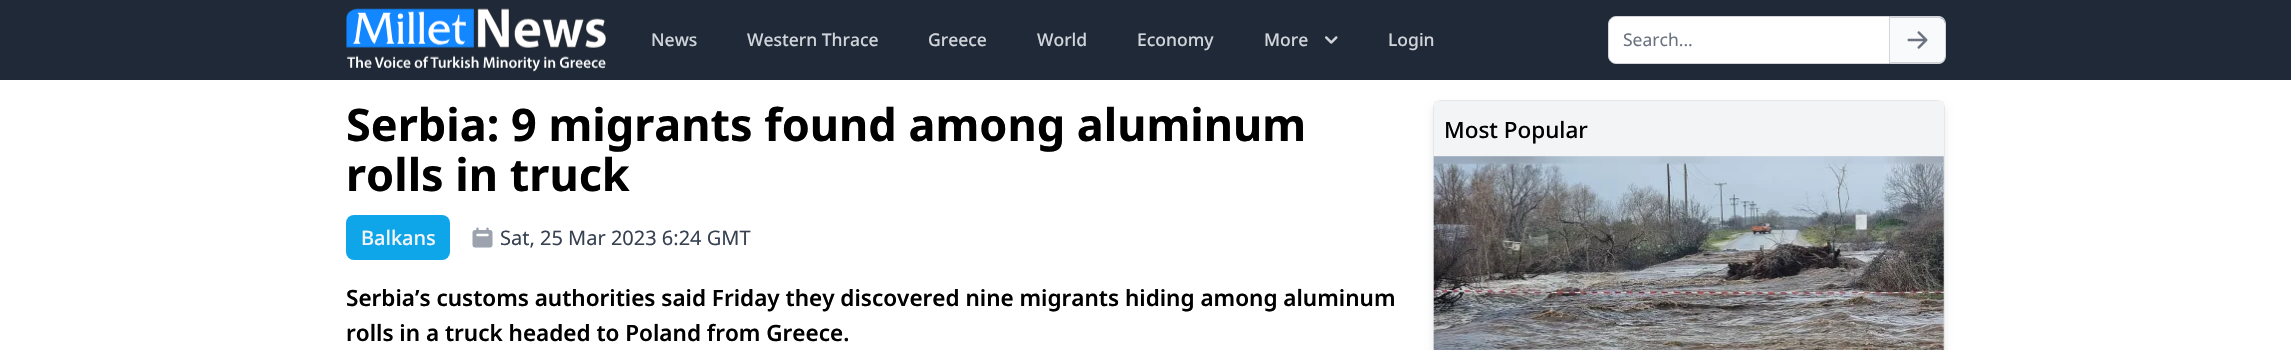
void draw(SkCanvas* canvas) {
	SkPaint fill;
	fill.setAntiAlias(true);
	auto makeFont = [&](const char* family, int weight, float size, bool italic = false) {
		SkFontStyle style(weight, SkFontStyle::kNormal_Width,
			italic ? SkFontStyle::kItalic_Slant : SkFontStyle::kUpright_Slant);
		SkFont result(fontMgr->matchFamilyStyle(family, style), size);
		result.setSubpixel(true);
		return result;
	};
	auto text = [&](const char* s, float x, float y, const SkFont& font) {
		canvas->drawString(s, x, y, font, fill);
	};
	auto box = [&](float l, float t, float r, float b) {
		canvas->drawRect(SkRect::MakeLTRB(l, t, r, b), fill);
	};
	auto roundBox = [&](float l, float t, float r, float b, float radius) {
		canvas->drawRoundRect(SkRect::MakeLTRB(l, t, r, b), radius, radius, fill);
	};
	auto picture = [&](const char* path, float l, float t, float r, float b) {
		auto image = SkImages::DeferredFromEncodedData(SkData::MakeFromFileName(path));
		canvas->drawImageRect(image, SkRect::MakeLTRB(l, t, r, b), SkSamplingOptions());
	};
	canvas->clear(0xFFFFFFFF);
	fill.setColor(0xFF1F2937);
	box(0, 0, 2291, 80);
	picture("image0.png", 346, 8, 606, 72);
	picture("image1.png", 1325, 36, 1338, 44);
	fill.setColor(0xFFFFFFFF);
	canvas->drawPath(SkPathBuilder().moveTo(1616, 16.5f).lineTo(1889.5f, 16.5f).lineTo(1889.5f, 63.5f).lineTo(1616, 63.5f).cubicTo(1612, 63.5f, 1608.5f, 60, 1608.5f, 56).lineTo(1608.5f, 24).cubicTo(1608.5f, 20, 1612, 16.5f, 1616, 16.5f).close().detach(), fill);
	fill.setStyle(SkPaint::kStroke_Style);
	fill.setStrokeWidth(1);
	fill.setColor(0xFFD1D5DB);
	canvas->drawPath(SkPathBuilder().moveTo(1616, 16.5f).lineTo(1889.5f, 16.5f).lineTo(1889.5f, 63.5f).lineTo(1616, 63.5f).cubicTo(1612, 63.5f, 1608.5f, 60, 1608.5f, 56).lineTo(1608.5f, 24).cubicTo(1608.5f, 20, 1612, 16.5f, 1616, 16.5f).close().detach(), fill);
	fill.setStyle(SkPaint::kFill_Style);
	fill.setColor(0xFFF9FAFB);
	canvas->drawPath(SkPathBuilder().moveTo(1890, 18).lineTo(1939, 18).cubicTo(1942.5f, 18, 1945, 20.5f, 1945, 24).lineTo(1945, 57).cubicTo(1945, 60.5f, 1942.5f, 63, 1939, 63).lineTo(1890, 63).close().detach(), fill);
	fill.setColor(0xFFD1D5DB);
	canvas->drawPath(SkPathBuilder(SkPathFillType::kEvenOdd).moveTo(1890, 16).lineTo(1939, 16).cubicTo(1943, 16, 1946, 20, 1946, 24).lineTo(1946, 56).cubicTo(1946, 60, 1943, 64, 1939, 64).lineTo(1890, 64).close().moveTo(1890, 18).lineTo(1939, 18).cubicTo(1942, 18, 1945, 20, 1945, 24).lineTo(1945, 56).cubicTo(1945, 60, 1942, 62, 1939, 62).lineTo(1890, 62).close().detach(), fill);
	picture("image2.png", 1907, 31, 1928, 49);
	fill.setColor(0xFF0EA5E9);
	roundBox(346, 215, 450, 260, 8);
	picture("image3.png", 472, 227, 493, 248);
	fill.setColor(0x1A000000);
	fill.setMaskFilter(SkMaskFilter::MakeBlur(kNormal_SkBlurStyle, 4));
	canvas->drawRoundRect(SkRect::MakeLTRB(1434, 106, 1944, 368), 6, 6, fill);
	fill.setMaskFilter(nullptr);
	fill.setStyle(SkPaint::kStroke_Style);
	fill.setColor(0xFFE5E7EB);
	canvas->drawRoundRect(SkRect::MakeLTRB(1433.5f, 100.5f, 1944.5f, 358.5f), 7.5f, 7.5f, fill);
	fill.setStyle(SkPaint::kFill_Style);
	fill.setColor(0xFFF3F4F6);
	box(1434, 101, 1944, 156);
	picture("image4.png", 1433, 156, 1944, 350);
	auto font1 = makeFont("Noto Sans", 500, 17.5f);
	fill.setColor(0xFFD1D5DB);
	text("News", 651, 46, font1);
	text("Western Thrace", 747, 46, font1);
	text("Greece", 928, 46, font1);
	text("World", 1037, 46, font1);
	text("Economy", 1137, 46, font1);
	text("More", 1264, 46, font1);
	text("Login", 1388, 46, font1);
	auto font2 = makeFont("Noto Sans", 400, 17.5f);
	fill.setColor(0xFF6B7280);
	text("Search...", 1623, 46, font2);
	auto font3 = makeFont("Noto Sans", 700, 45);
	fill.setColor(0xFF000000);
	text("Serbia: 9 migrants found among aluminum", 346, 141, font3);
	text("rolls in truck", 346, 191, font3);
	auto font4 = makeFont("Noto Sans", 500, 20);
	fill.setColor(0xFFF3F4F6);
	text("Balkans", 361, 245, font4);
	auto font5 = makeFont("Noto Sans", 400, 20);
	fill.setColor(0xFF374151);
	text("Sat, 25 Mar 2023 6:24 GMT", 500, 245, font5);
	auto font6 = makeFont("Noto Sans", 600, 22.5f);
	fill.setColor(0xFF000000);
	text("Serbia’s customs authorities said Friday they discovered nine migrants hiding among aluminum", 346, 306, font6);
	text("rolls in a truck headed to Poland from Greece.", 346, 341, font6);
	auto font7 = makeFont("Noto Sans", 500, 22.5f);
	text("Most Popular", 1444, 138, font7);
}
